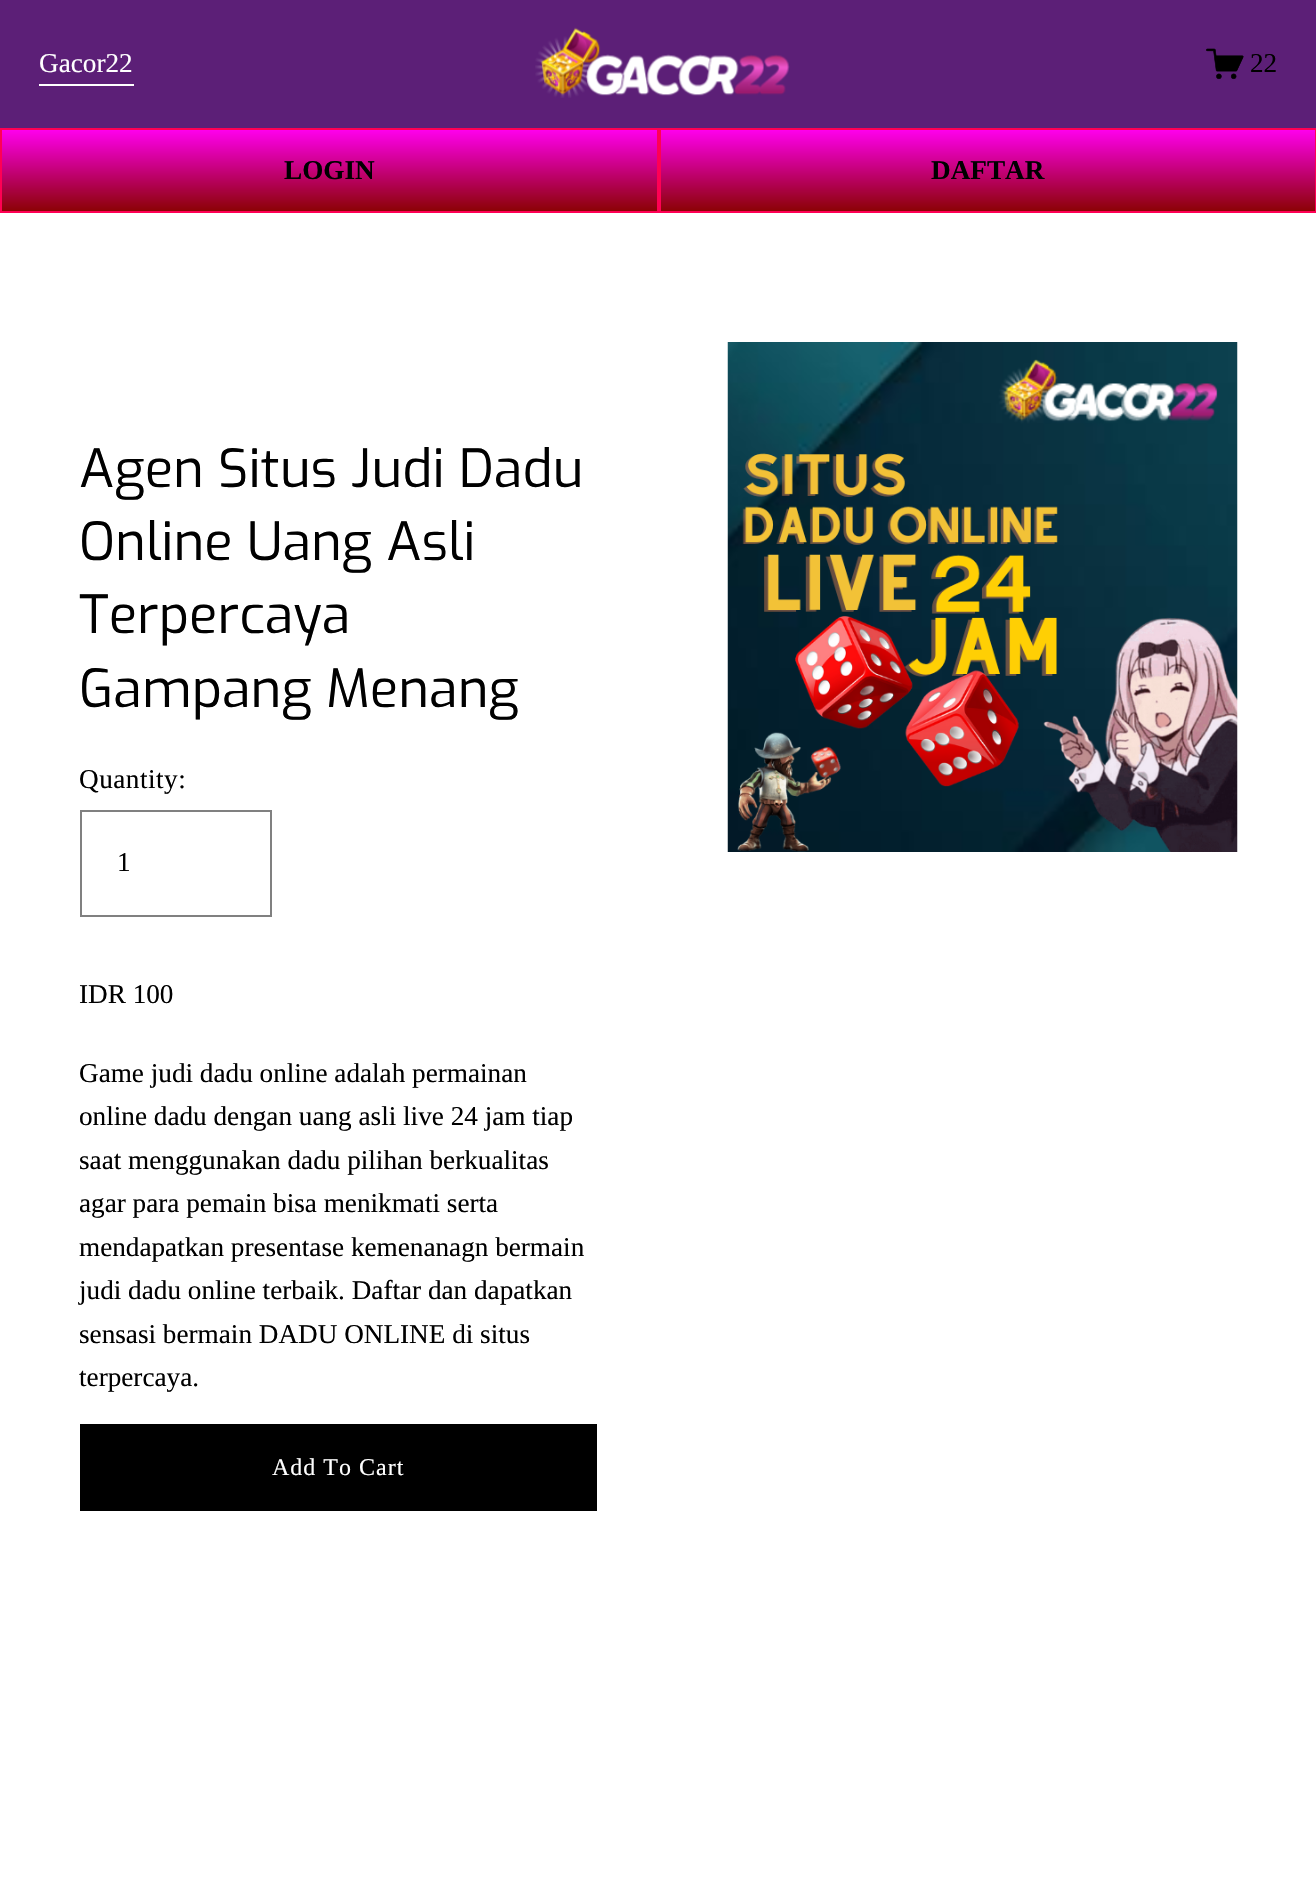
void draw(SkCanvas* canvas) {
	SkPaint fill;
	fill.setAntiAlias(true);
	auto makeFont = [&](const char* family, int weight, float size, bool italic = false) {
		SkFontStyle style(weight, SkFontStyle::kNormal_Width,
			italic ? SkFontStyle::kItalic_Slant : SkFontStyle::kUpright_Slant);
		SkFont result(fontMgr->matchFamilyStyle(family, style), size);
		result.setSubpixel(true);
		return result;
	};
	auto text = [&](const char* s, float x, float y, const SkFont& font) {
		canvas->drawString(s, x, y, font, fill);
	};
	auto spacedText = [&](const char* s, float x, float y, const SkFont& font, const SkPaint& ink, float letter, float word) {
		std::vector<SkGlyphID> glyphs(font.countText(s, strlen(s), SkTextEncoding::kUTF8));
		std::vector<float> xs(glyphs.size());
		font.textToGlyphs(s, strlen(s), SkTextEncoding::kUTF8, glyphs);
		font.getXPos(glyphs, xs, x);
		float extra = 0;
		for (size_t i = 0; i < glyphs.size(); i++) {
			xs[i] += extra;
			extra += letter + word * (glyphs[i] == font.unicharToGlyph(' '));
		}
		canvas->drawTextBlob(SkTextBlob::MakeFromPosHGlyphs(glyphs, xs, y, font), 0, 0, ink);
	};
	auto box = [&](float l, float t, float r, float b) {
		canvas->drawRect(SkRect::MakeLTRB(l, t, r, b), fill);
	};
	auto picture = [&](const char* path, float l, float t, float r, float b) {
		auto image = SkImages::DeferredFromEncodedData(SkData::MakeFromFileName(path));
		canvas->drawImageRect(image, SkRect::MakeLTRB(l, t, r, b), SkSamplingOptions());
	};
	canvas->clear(0xFFFFFFFF);
	fill.setColor(0xFF5C1F77);
	box(0, 0, 1316, 128);
	fill.setColor(0xFFFFFFFF);
	box(39, 84, 134, 86);
	picture("image0.png", 535, 27, 790, 98);
	picture("image1.png", 1206, 48, 1244, 80);
	{
		const SkColor colors[] = {0xFFFF00EF, 0xFF8A0202};
		const float stops[] = {0, 1};
		const SkPoint ends[] = {{329, 129}, {329, 212}};
		fill.setShader(SkGradientShader::MakeLinear(ends, colors, stops, 2, SkTileMode::kClamp));
		fill.setAlpha(255);
	}
	box(2, 130, 657, 211);
	fill.setStyle(SkPaint::kStroke_Style);
	fill.setStrokeWidth(2);
	fill.setShader(nullptr);
	fill.setColor(0xFFFF0054);
	canvas->drawRect(SkRect::MakeLTRB(1, 129, 658, 212), fill);
	fill.setStyle(SkPaint::kFill_Style);
	{
		const SkColor colors[] = {0xFFFF00EF, 0xFF8A0202};
		const float stops[] = {0, 1};
		const SkPoint ends[] = {{988, 129}, {988, 212}};
		fill.setShader(SkGradientShader::MakeLinear(ends, colors, stops, 2, SkTileMode::kClamp));
		fill.setAlpha(255);
	}
	box(661, 130, 1315, 211);
	fill.setStyle(SkPaint::kStroke_Style);
	fill.setShader(nullptr);
	fill.setColor(0xFFFF0054);
	canvas->drawRect(SkRect::MakeLTRB(660, 129, 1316, 212), fill);
	fill.setColor(0xFF808080);
	canvas->drawRect(SkRect::MakeLTRB(81, 811, 271, 916), fill);
	fill.setStyle(SkPaint::kFill_Style);
	fill.setColor(0xFF000000);
	box(80, 1424, 597, 1511);
	picture("image2.png", 727, 342, 1238, 852);
	auto font1 = makeFont("Liberation Serif", 400, 27.2f);
	fill.setColor(0xFFFFFFFF);
	text("Gacor22", 39, 72, font1);
	fill.setColor(0xFF000000);
	text("22", 1250, 72, font1);
	auto font2 = makeFont("Liberation Serif", 700, 27.2f);
	text("LOGIN", 284, 179, font2);
	text("DAFTAR", 931, 179, font2);
	auto font3 = makeFont("Exo", 400, 52.5f);
	text("Agen Situs Judi Dadu", 79, 487, font3);
	text("Online Uang Asli", 79, 560, font3);
	text("Terpercaya", 79, 633, font3);
	text("Gampang Menang", 79, 707, font3);
	spacedText("Quantity:", 79, 788, font1, fill, 0.5f, 0);
	text("1", 117, 871, font1);
	text("IDR 100", 79, 1003, font1);
	text("Game judi dadu online adalah permainan", 79, 1082, font1);
	text("online dadu dengan uang asli live 24 jam tiap", 79, 1125, font1);
	text("saat menggunakan dadu pilihan berkualitas", 79, 1169, font1);
	text("agar para pemain bisa menikmati serta", 79, 1212, font1);
	text("mendapatkan presentase kemenanagn bermain", 79, 1256, font1);
	text("judi dadu online terbaik. Daftar dan dapatkan", 79, 1299, font1);
	text("sensasi bermain DADU ONLINE di situs", 79, 1343, font1);
	text("terpercaya.", 79, 1386, font1);
	auto font4 = makeFont("Liberation Serif", 400, 24);
	fill.setColor(0xFFFFFFFF);
	spacedText("Add To Cart", 272, 1475, font4, fill, 1, 0);
}
